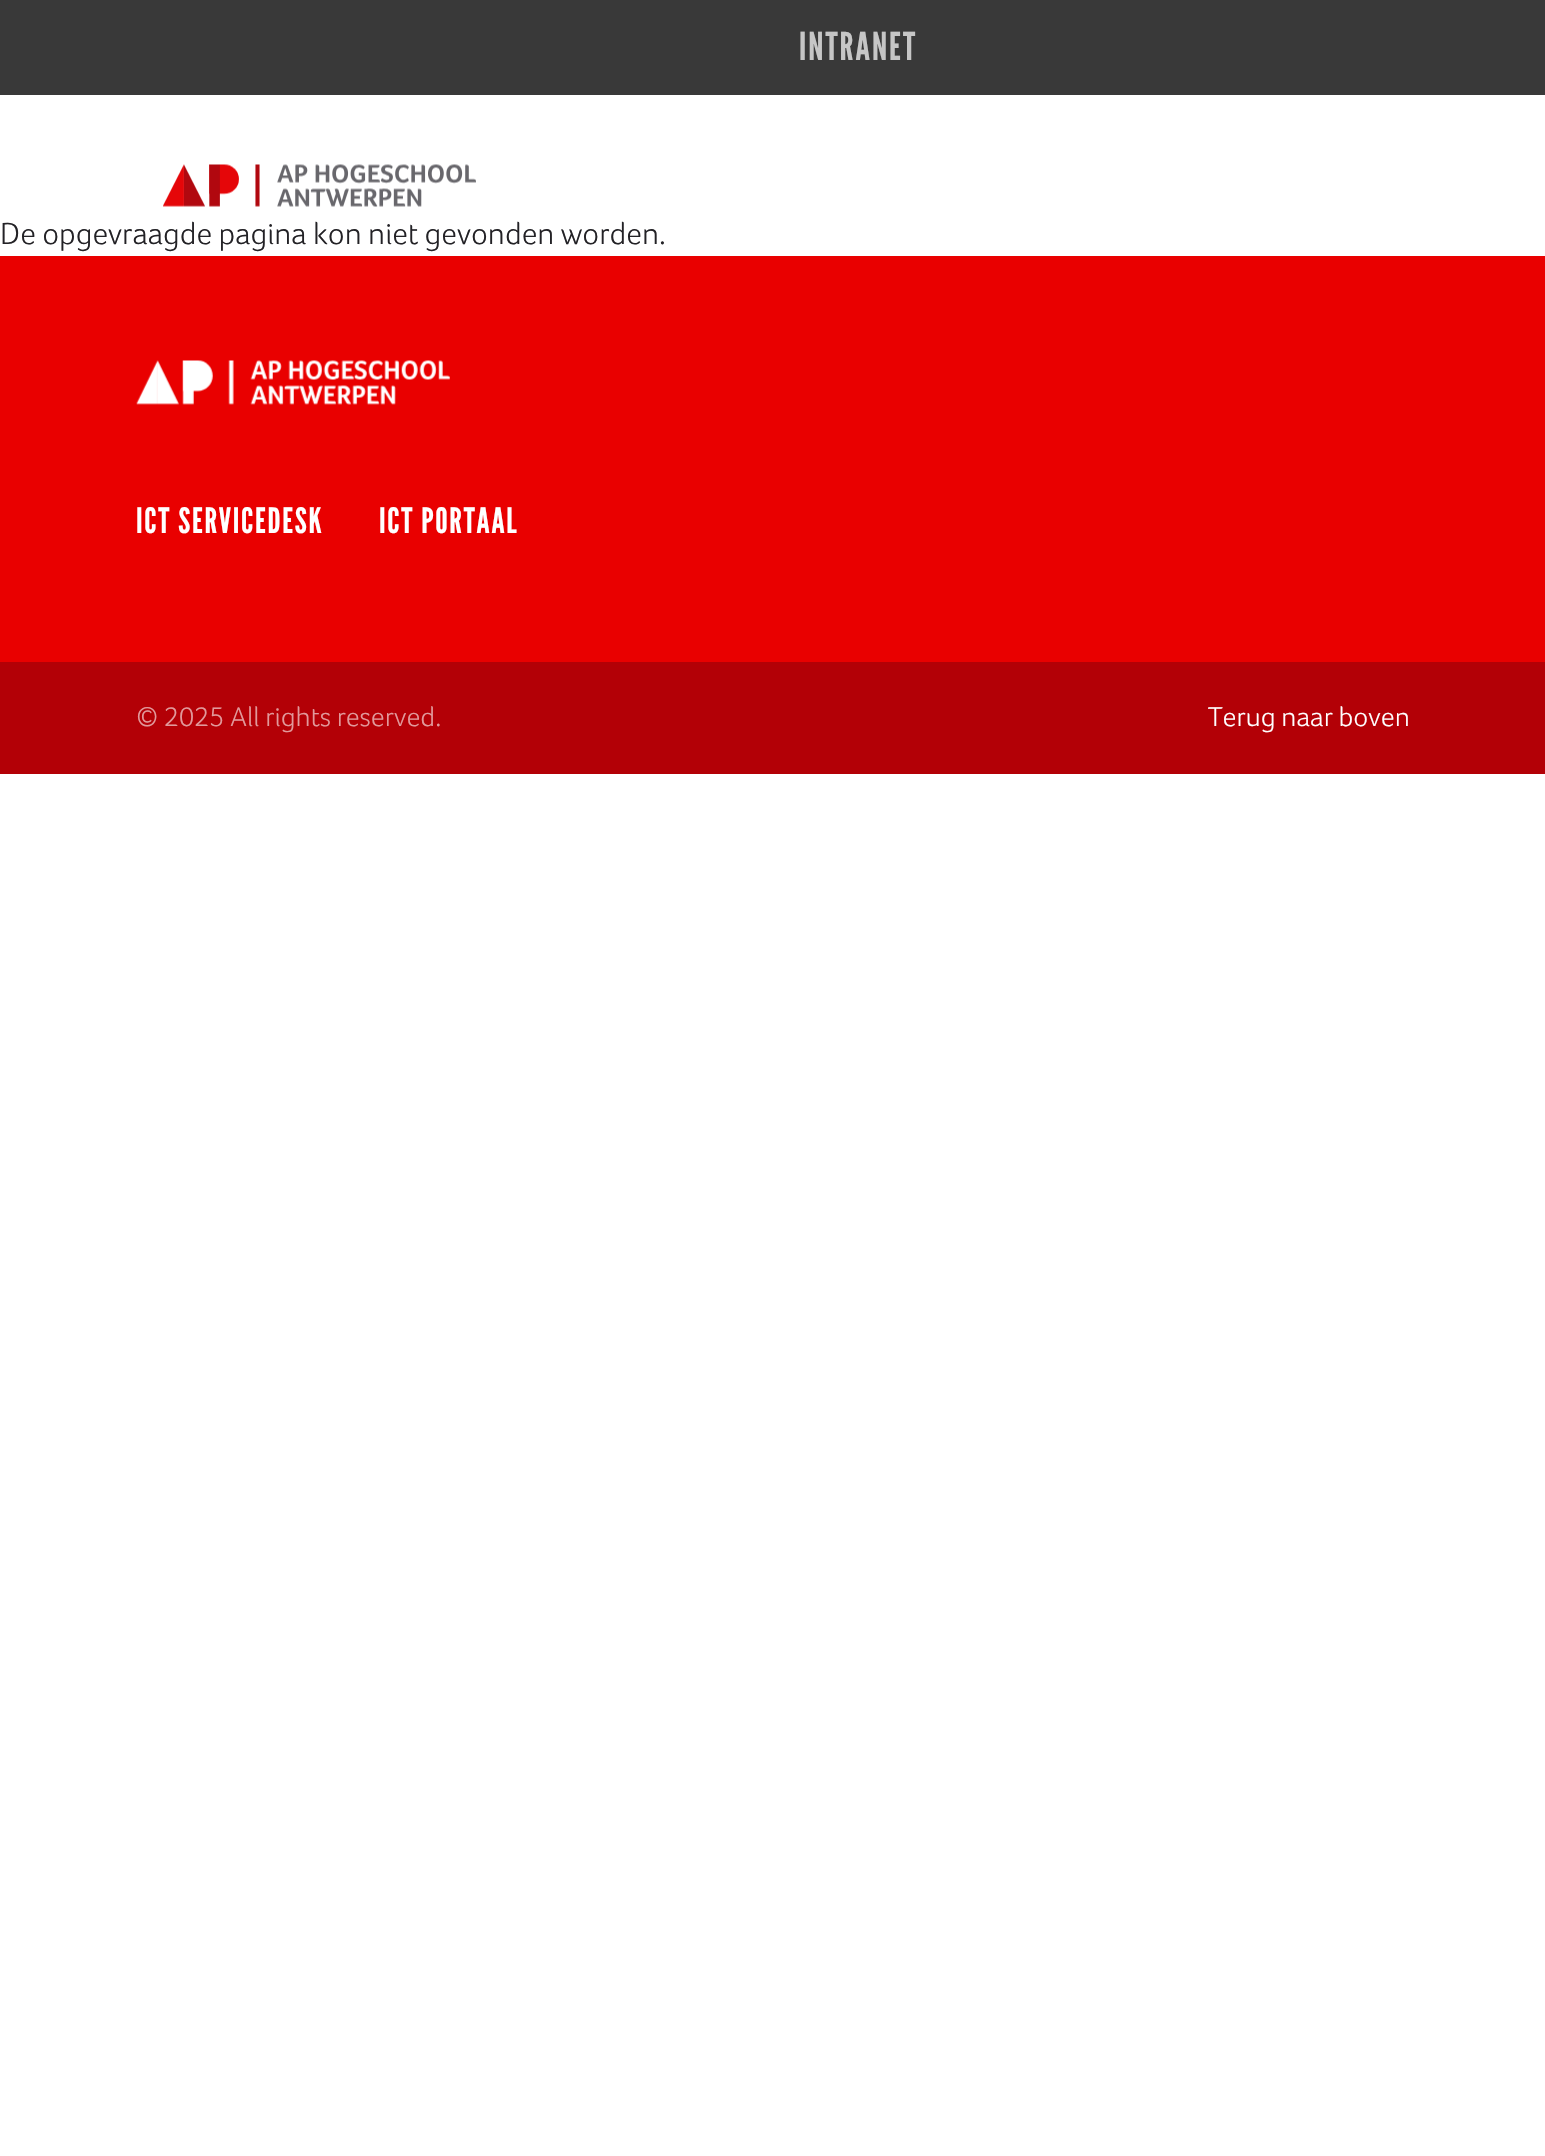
void draw(SkCanvas* canvas) {
	SkPaint fill;
	fill.setAntiAlias(true);
	auto makeFont = [&](const char* family, int weight, float size, bool italic = false) {
		SkFontStyle style(weight, SkFontStyle::kNormal_Width,
			italic ? SkFontStyle::kItalic_Slant : SkFontStyle::kUpright_Slant);
		SkFont result(fontMgr->matchFamilyStyle(family, style), size);
		result.setSubpixel(true);
		return result;
	};
	auto text = [&](const char* s, float x, float y, const SkFont& font) {
		canvas->drawString(s, x, y, font, fill);
	};
	auto spacedText = [&](const char* s, float x, float y, const SkFont& font, const SkPaint& ink, float letter, float word) {
		std::vector<SkGlyphID> glyphs(font.countText(s, strlen(s), SkTextEncoding::kUTF8));
		std::vector<float> xs(glyphs.size());
		font.textToGlyphs(s, strlen(s), SkTextEncoding::kUTF8, glyphs);
		font.getXPos(glyphs, xs, x);
		float extra = 0;
		for (size_t i = 0; i < glyphs.size(); i++) {
			xs[i] += extra;
			extra += letter + word * (glyphs[i] == font.unicharToGlyph(' '));
		}
		canvas->drawTextBlob(SkTextBlob::MakeFromPosHGlyphs(glyphs, xs, y, font), 0, 0, ink);
	};
	auto box = [&](float l, float t, float r, float b) {
		canvas->drawRect(SkRect::MakeLTRB(l, t, r, b), fill);
	};
	auto picture = [&](const char* path, float l, float t, float r, float b) {
		auto image = SkImages::DeferredFromEncodedData(SkData::MakeFromFileName(path));
		canvas->drawImageRect(image, SkRect::MakeLTRB(l, t, r, b), SkSamplingOptions());
	};
	canvas->clear(0xFFFFFFFF);
	fill.setColor(0xFF393939);
	box(0, 0, 1545, 95);
	picture("image0.png", 163, 164, 476, 207);
	fill.setColor(0xFFE90000);
	box(0, 256, 1545, 662);
	picture("image1.png", 136, 360, 450, 405);
	fill.setColor(0xFFB30006);
	box(0, 662, 1545, 774);
	auto font1 = makeFont("League Gothic", 400, 38.5f);
	fill.setColor(0xFFC6C6C6);
	spacedText("INTRANET", 799, 60, font1, fill, 2, 0);
	auto font2 = makeFont("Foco", 300, 31.5f);
	fill.setColor(0xFF232226);
	text("De opgevraagde pagina kon niet gevonden worden.", 0, 244, font2);
	auto font3 = makeFont("League Gothic", 400, 35);
	fill.setColor(0xFFFFFFFF);
	spacedText("ICT SERVICEDESK", 136, 533, font3, fill, 1.75f, 0);
	spacedText("ICT PORTAAL", 379, 533, font3, fill, 1.75f, 0);
	auto font4 = makeFont("Foco", 300, 28);
	fill.setColor(0xFFE1999B);
	text("© 2025 All rights reserved.", 136, 726, font4);
	fill.setColor(0xFFFFFFFF);
	text("Terug naar boven", 1208, 726, font4);
}
